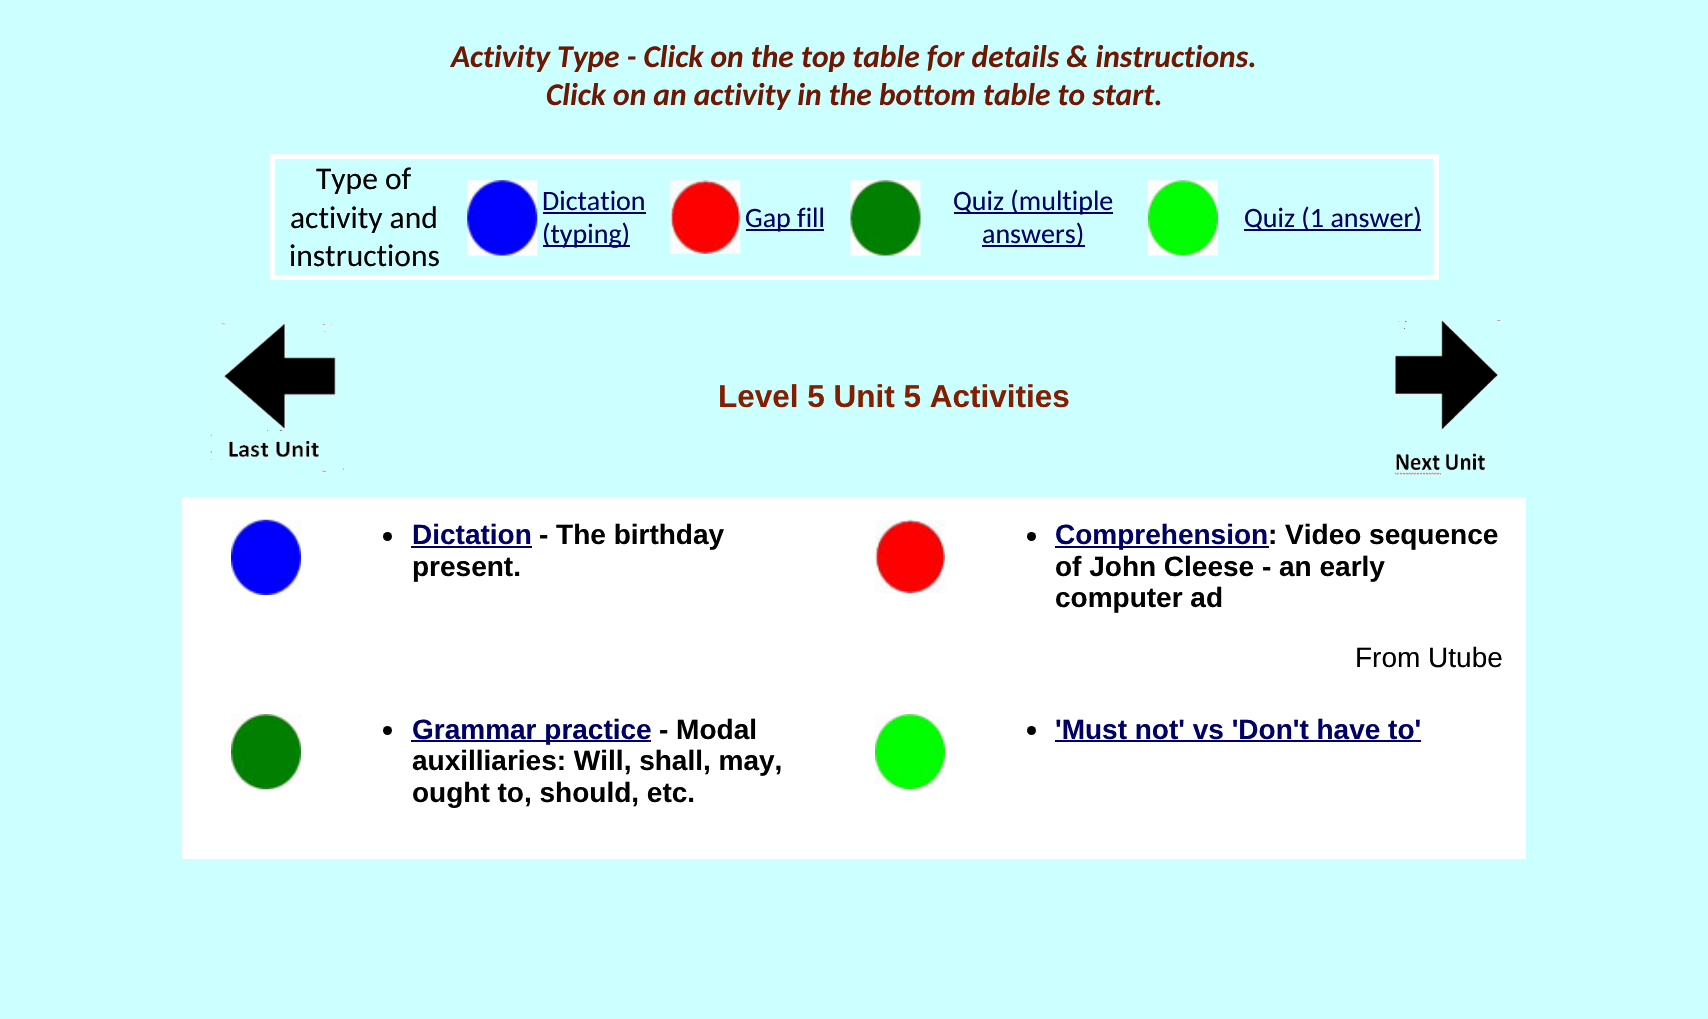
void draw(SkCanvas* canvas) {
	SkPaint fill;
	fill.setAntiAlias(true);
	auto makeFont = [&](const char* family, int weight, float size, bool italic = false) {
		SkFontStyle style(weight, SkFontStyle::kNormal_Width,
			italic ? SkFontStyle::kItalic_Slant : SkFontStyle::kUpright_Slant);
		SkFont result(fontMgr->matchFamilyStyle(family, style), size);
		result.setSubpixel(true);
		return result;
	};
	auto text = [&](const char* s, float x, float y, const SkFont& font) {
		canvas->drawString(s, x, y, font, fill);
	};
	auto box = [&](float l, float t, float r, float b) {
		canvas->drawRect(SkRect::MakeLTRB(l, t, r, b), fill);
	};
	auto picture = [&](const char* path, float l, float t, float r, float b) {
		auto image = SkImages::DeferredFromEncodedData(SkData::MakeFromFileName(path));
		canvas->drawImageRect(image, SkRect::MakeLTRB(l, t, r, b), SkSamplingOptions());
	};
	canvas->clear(0xFFCCFFFF);
	fill.setColor(0xFFFFFFFF);
	box(270, 154, 1439, 280);
	fill.setColor(0xFFCCFFFF);
	box(275, 159, 1433, 275);
	picture("image0.png", 467, 180, 538, 256);
	fill.setColor(0xFF000066);
	box(543, 212, 646, 214);
	box(543, 245, 630, 247);
	picture("image1.png", 670, 180, 741, 254);
	box(746, 229, 824, 231);
	picture("image2.png", 850, 180, 921, 256);
	box(954, 212, 1113, 214);
	box(982, 245, 1085, 247);
	picture("image3.png", 1148, 180, 1218, 256);
	box(1244, 229, 1421, 231);
	picture("image4.png", 210, 323, 344, 472);
	picture("image5.png", 1394, 320, 1501, 475);
	fill.setColor(0xFFFFFFFF);
	box(182, 497, 1526, 859);
	picture("image6.png", 231, 519, 301, 595);
	fill.setColor(0xFF000000);
	canvas->drawCircle(387.5f, 536.5f, 4.5f, fill);
	fill.setColor(0xFF000066);
	box(411, 546, 532, 548);
	picture("image7.png", 875, 519, 945, 594);
	fill.setColor(0xFF000000);
	canvas->drawCircle(1031.5f, 536.5f, 4.5f, fill);
	fill.setColor(0xFF000066);
	box(1055, 546, 1269, 548);
	picture("image8.png", 231, 714, 301, 790);
	fill.setColor(0xFF000000);
	canvas->drawCircle(387.5f, 730.5f, 4.5f, fill);
	fill.setColor(0xFF000066);
	box(411, 740, 651, 742);
	picture("image9.png", 875, 714, 945, 790);
	fill.setColor(0xFF000000);
	canvas->drawCircle(1031.5f, 730.5f, 4.5f, fill);
	fill.setColor(0xFF000066);
	box(1055, 740, 1421, 742);
	auto font1 = makeFont("Carlito", 700, 31.5f, true);
	fill.setColor(0xFF6F1702);
	text("Activity Type - Click on the top table for details & instructions.", 451, 67, font1);
	text("Click on an activity in the bottom table to start.", 546, 105, font1);
	auto font2 = makeFont("Carlito", 400, 31.5f);
	fill.setColor(0xFF000000);
	text("Type of", 316, 189, font2);
	text("activity and", 290, 228, font2);
	text("instructions", 289, 266, font2);
	auto font3 = makeFont("Carlito", 400, 28);
	fill.setColor(0xFF000066);
	text("Dictation", 542, 210, font3);
	text("(typing)", 542, 243, font3);
	text("Gap fill", 745, 227, font3);
	text("Quiz (multiple", 953, 210, font3);
	text("answers)", 982, 243, font3);
	text("Quiz (1 answer)", 1244, 227, font3);
	auto font4 = makeFont("Liberation Sans", 700, 31.5f);
	fill.setColor(0xFF831E01);
	text("Level 5 Unit 5 Activities", 718, 407, font4);
	auto font5 = makeFont("Liberation Sans", 700, 28);
	fill.setColor(0xFF000066);
	text("Dictation", 412, 544, font5);
	fill.setColor(0xFF000000);
	text("- The birthday", 539, 544, font5);
	text("present.", 412, 576, font5);
	fill.setColor(0xFF000066);
	text("Comprehension", 1055, 544, font5);
	fill.setColor(0xFF000000);
	text(": Video sequence", 1268, 544, font5);
	text("of John Cleese - an early", 1055, 576, font5);
	text("computer ad", 1055, 607, font5);
	auto font6 = makeFont("Liberation Sans", 400, 28);
	text("From Utube", 1355, 667, font6);
	fill.setColor(0xFF000066);
	text("Grammar practice", 412, 739, font5);
	fill.setColor(0xFF000000);
	text("- Modal", 659, 739, font5);
	text("auxilliaries: Will, shall, may,", 412, 770, font5);
	text("ought to, should, etc.", 412, 802, font5);
	fill.setColor(0xFF000066);
	text("'Must not' vs 'Don't have to'", 1055, 739, font5);
}
